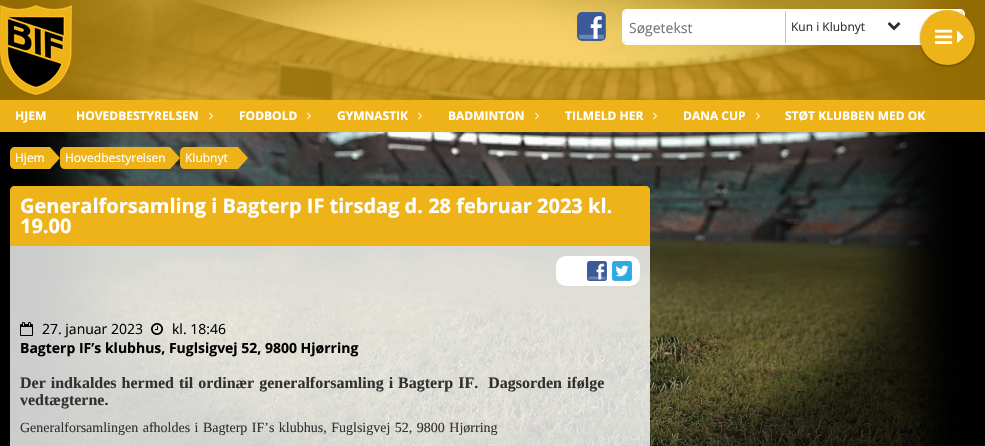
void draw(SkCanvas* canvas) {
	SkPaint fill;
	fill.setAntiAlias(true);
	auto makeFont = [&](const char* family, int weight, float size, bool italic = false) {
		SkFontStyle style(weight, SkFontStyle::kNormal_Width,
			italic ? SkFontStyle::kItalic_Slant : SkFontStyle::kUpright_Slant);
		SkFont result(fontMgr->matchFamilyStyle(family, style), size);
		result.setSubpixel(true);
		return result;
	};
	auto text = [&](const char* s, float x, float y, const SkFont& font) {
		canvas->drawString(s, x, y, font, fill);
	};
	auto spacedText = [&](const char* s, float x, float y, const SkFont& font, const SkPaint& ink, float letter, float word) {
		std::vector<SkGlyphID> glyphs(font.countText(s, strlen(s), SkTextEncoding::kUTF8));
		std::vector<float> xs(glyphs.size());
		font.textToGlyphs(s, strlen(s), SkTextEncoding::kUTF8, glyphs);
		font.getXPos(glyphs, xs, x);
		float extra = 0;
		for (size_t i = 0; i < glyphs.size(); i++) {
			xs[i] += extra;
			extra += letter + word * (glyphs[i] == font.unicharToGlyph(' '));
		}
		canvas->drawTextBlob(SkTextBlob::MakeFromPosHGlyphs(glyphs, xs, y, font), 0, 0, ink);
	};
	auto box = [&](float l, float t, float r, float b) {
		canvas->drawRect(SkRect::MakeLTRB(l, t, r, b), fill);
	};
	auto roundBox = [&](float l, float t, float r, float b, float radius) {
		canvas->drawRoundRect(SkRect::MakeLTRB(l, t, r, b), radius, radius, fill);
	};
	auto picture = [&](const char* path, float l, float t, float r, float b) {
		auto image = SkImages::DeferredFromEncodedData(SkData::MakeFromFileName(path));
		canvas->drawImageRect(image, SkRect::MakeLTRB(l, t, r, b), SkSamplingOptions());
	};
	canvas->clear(0xFFFFFFFF);
	picture("image0.png", 0, 0, 985, 446);
	fill.setColor(0x99F5B205);
	box(0, 0, 985, 100);
	picture("image1.png", 0, 5, 72, 95);
	picture("image2.png", 577, 12, 606, 41);
	fill.setStyle(SkPaint::kStroke_Style);
	fill.setStrokeWidth(2);
	fill.setColor(0xFFFFFFFF);
	canvas->drawRoundRect(SkRect::MakeLTRB(623, 10, 964, 44), 4, 4, fill);
	fill.setStyle(SkPaint::kFill_Style);
	canvas->drawPath(SkPathBuilder().moveTo(627, 11).lineTo(789, 11).lineTo(789, 43).lineTo(627, 43).cubicTo(625.5f, 43, 624, 41.5f, 624, 40).lineTo(624, 14).cubicTo(624, 12.5f, 625.5f, 11, 627, 11).close().detach(), fill);
	box(789, 11, 906, 43);
	fill.setColor(0xFFC2C2C2);
	box(785, 11, 786, 43);
	picture("image3.png", 887, 22, 901, 31);
	fill.setColor(0xFFFFFFFF);
	canvas->drawPath(SkPathBuilder().moveTo(906, 11).lineTo(960, 11).cubicTo(961.5f, 11, 963, 12.5f, 963, 14).lineTo(963, 40).cubicTo(963, 41.5f, 961.5f, 43, 960, 43).lineTo(906, 43).close().detach(), fill);
	fill.setColor(0x3D000000);
	fill.setMaskFilter(SkMaskFilter::MakeBlur(kNormal_SkBlurStyle, 1));
	canvas->drawRoundRect(SkRect::MakeLTRB(920, 11, 975, 66), 27.5f, 27.5f, fill);
	fill.setMaskFilter(nullptr);
	fill.setColor(0x1F000000);
	fill.setMaskFilter(SkMaskFilter::MakeBlur(kNormal_SkBlurStyle, 1.5f));
	canvas->drawRoundRect(SkRect::MakeLTRB(920, 11, 975, 66), 27.5f, 27.5f, fill);
	fill.setMaskFilter(nullptr);
	fill.setColor(0xFFEFB31A);
	canvas->drawCircle(947.5f, 37.5f, 27.5f, fill);
	picture("image4.png", 935, 29, 953, 44);
	picture("image5.png", 957, 31, 964, 43);
	box(0, 100, 985, 132);
	picture("image6.png", 209, 112, 213, 120);
	picture("image6.png", 307, 112, 311, 120);
	picture("image6.png", 418, 112, 422, 120);
	picture("image6.png", 535, 112, 539, 120);
	picture("image6.png", 653, 112, 657, 120);
	picture("image6.png", 756, 112, 760, 120);
	canvas->drawPath(SkPathBuilder().moveTo(15, 147).lineTo(50, 147).lineTo(50, 169).lineTo(15, 169).cubicTo(12, 169, 10, 167, 10, 164).lineTo(10, 152).cubicTo(10, 149, 12, 147, 15, 147).close().detach(), fill);
	canvas->drawPath(SkPathBuilder().moveTo(50, 169).lineTo(50, 147).lineTo(60, 158).close().detach(), fill);
	canvas->drawPath(SkPathBuilder().moveTo(65, 147).lineTo(170, 147).lineTo(170, 169).lineTo(65, 169).cubicTo(62, 169, 60, 167, 60, 164).lineTo(60, 152).cubicTo(60, 149, 62, 147, 65, 147).close().detach(), fill);
	canvas->drawPath(SkPathBuilder().moveTo(170, 169).lineTo(170, 147).lineTo(180, 158).close().detach(), fill);
	canvas->drawPath(SkPathBuilder().moveTo(185, 147).lineTo(238, 147).lineTo(238, 169).lineTo(185, 169).cubicTo(182, 169, 180, 167, 180, 164).lineTo(180, 152).cubicTo(180, 149, 182, 147, 185, 147).close().detach(), fill);
	canvas->drawPath(SkPathBuilder().moveTo(238, 169).lineTo(238, 147).lineTo(248, 158).close().detach(), fill);
	fill.setColor(0xCCFFFFFF);
	roundBox(10, 186, 650, 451, 5);
	fill.setColor(0xFFEFB31A);
	canvas->drawPath(SkPathBuilder().moveTo(15, 186).lineTo(645, 186).cubicTo(648, 186, 650, 188, 650, 191).lineTo(650, 246).lineTo(10, 246).lineTo(10, 191).cubicTo(10, 188, 12, 186, 15, 186).close().detach(), fill);
	fill.setColor(0xFFFFFFFF);
	roundBox(556, 256, 640, 286, 10);
	picture("image7.png", 587, 261, 607, 281);
	picture("image8.png", 612, 261, 632, 281);
	picture("image9.png", 20, 322, 33, 336);
	picture("image10.png", 151, 323, 163, 335);
	auto font1 = makeFont("Open Sans", 400, 14);
	fill.setColor(0xFF757575);
	text("Søgetekst", 629, 33, font1);
	auto font2 = makeFont("Open Sans", 400, 12);
	fill.setColor(0xFF313131);
	text("Kun i Klubnyt", 791, 31, font2);
	auto font3 = makeFont("Open Sans", 700, 12);
	fill.setColor(0xFFFFFFFF);
	text("HJEM", 15, 120, font3);
	text("HOVEDBESTYRELSEN", 76, 120, font3);
	text("FODBOLD", 239, 120, font3);
	text("GYMNASTIK", 337, 120, font3);
	text("BADMINTON", 448, 120, font3);
	text("TILMELD HER", 565, 120, font3);
	text("DANA CUP", 683, 120, font3);
	text("STØT KLUBBEN MED OK", 785, 120, font3);
	text("Hjem", 15, 162, font2);
	text("Hovedbestyrelsen", 65, 162, font2);
	text("Klubnyt", 185, 162, font2);
	auto font4 = makeFont("Open Sans", 700, 20);
	text("Generalforsamling i Bagterp IF tirsdag d. 28 februar 2023 kl.", 20, 213, font4);
	text("19.00", 20, 233, font4);
	fill.setColor(0xFF000000);
	text("27. januar 2023", 42, 334, font1);
	text("kl. 18:46", 172, 334, font1);
	auto font5 = makeFont("Open Sans", 700, 14);
	text("Bagterp IF’s klubhus, Fuglsigvej 52, 9800 Hjørring", 20, 353, font5);
	auto font6 = makeFont("Liberation Serif", 700, 16);
	fill.setColor(0xFF313131);
	spacedText("Der indkaldes hermed til ordinær generalforsamling i Bagterp IF.  Dagsorden ifølge", 20, 388, font6, fill, 0, 1);
	text("vedtægterne.", 20, 405, font6);
	auto font7 = makeFont("Liberation Serif", 400, 14);
	spacedText("Generalforsamlingen afholdes i Bagterp IF’s klubhus, Fuglsigvej 52, 9800 Hjørring", 20, 432, font7, fill, 0, 1);
}
